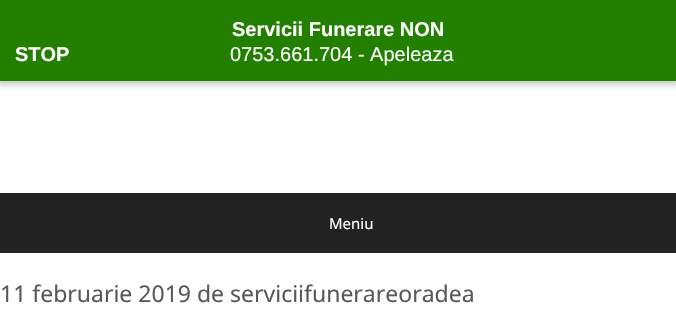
void draw(SkCanvas* canvas) {
	SkPaint fill;
	fill.setAntiAlias(true);
	auto makeFont = [&](const char* family, int weight, float size, bool italic = false) {
		SkFontStyle style(weight, SkFontStyle::kNormal_Width,
			italic ? SkFontStyle::kItalic_Slant : SkFontStyle::kUpright_Slant);
		SkFont result(fontMgr->matchFamilyStyle(family, style), size);
		result.setSubpixel(true);
		return result;
	};
	auto text = [&](const char* s, float x, float y, const SkFont& font) {
		canvas->drawString(s, x, y, font, fill);
	};
	auto box = [&](float l, float t, float r, float b) {
		canvas->drawRect(SkRect::MakeLTRB(l, t, r, b), fill);
	};
	canvas->clear(0xFFFFFFFF);
	fill.setColor(0xFFCCCCCC);
	fill.setMaskFilter(SkMaskFilter::MakeBlur(kNormal_SkBlurStyle, 3));
	canvas->drawRect(SkRect::MakeLTRB(-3, -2, 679, 85), fill);
	fill.setMaskFilter(nullptr);
	fill.setColor(0xFF227F00);
	box(0, 0, 676, 81);
	fill.setColor(0xFF222222);
	box(0, 193, 676, 253);
	auto font1 = makeFont("Liberation Sans", 700, 20);
	fill.setColor(0xFFFFFFFF);
	text("Servicii Funerare NON", 232, 36, font1);
	text("STOP", 15, 61, font1);
	auto font2 = makeFont("Liberation Sans", 400, 20);
	text("0753.661.704 - Apeleaza", 230, 61, font2);
	auto font3 = makeFont("Noto Sans", 400, 15);
	text("Meniu", 329, 229, font3);
	auto font4 = makeFont("Noto Sans", 400, 23);
	fill.setColor(0xFF595959);
	text("11 februarie 2019 de serviciifunerareoradea", 0, 302, font4);
}
